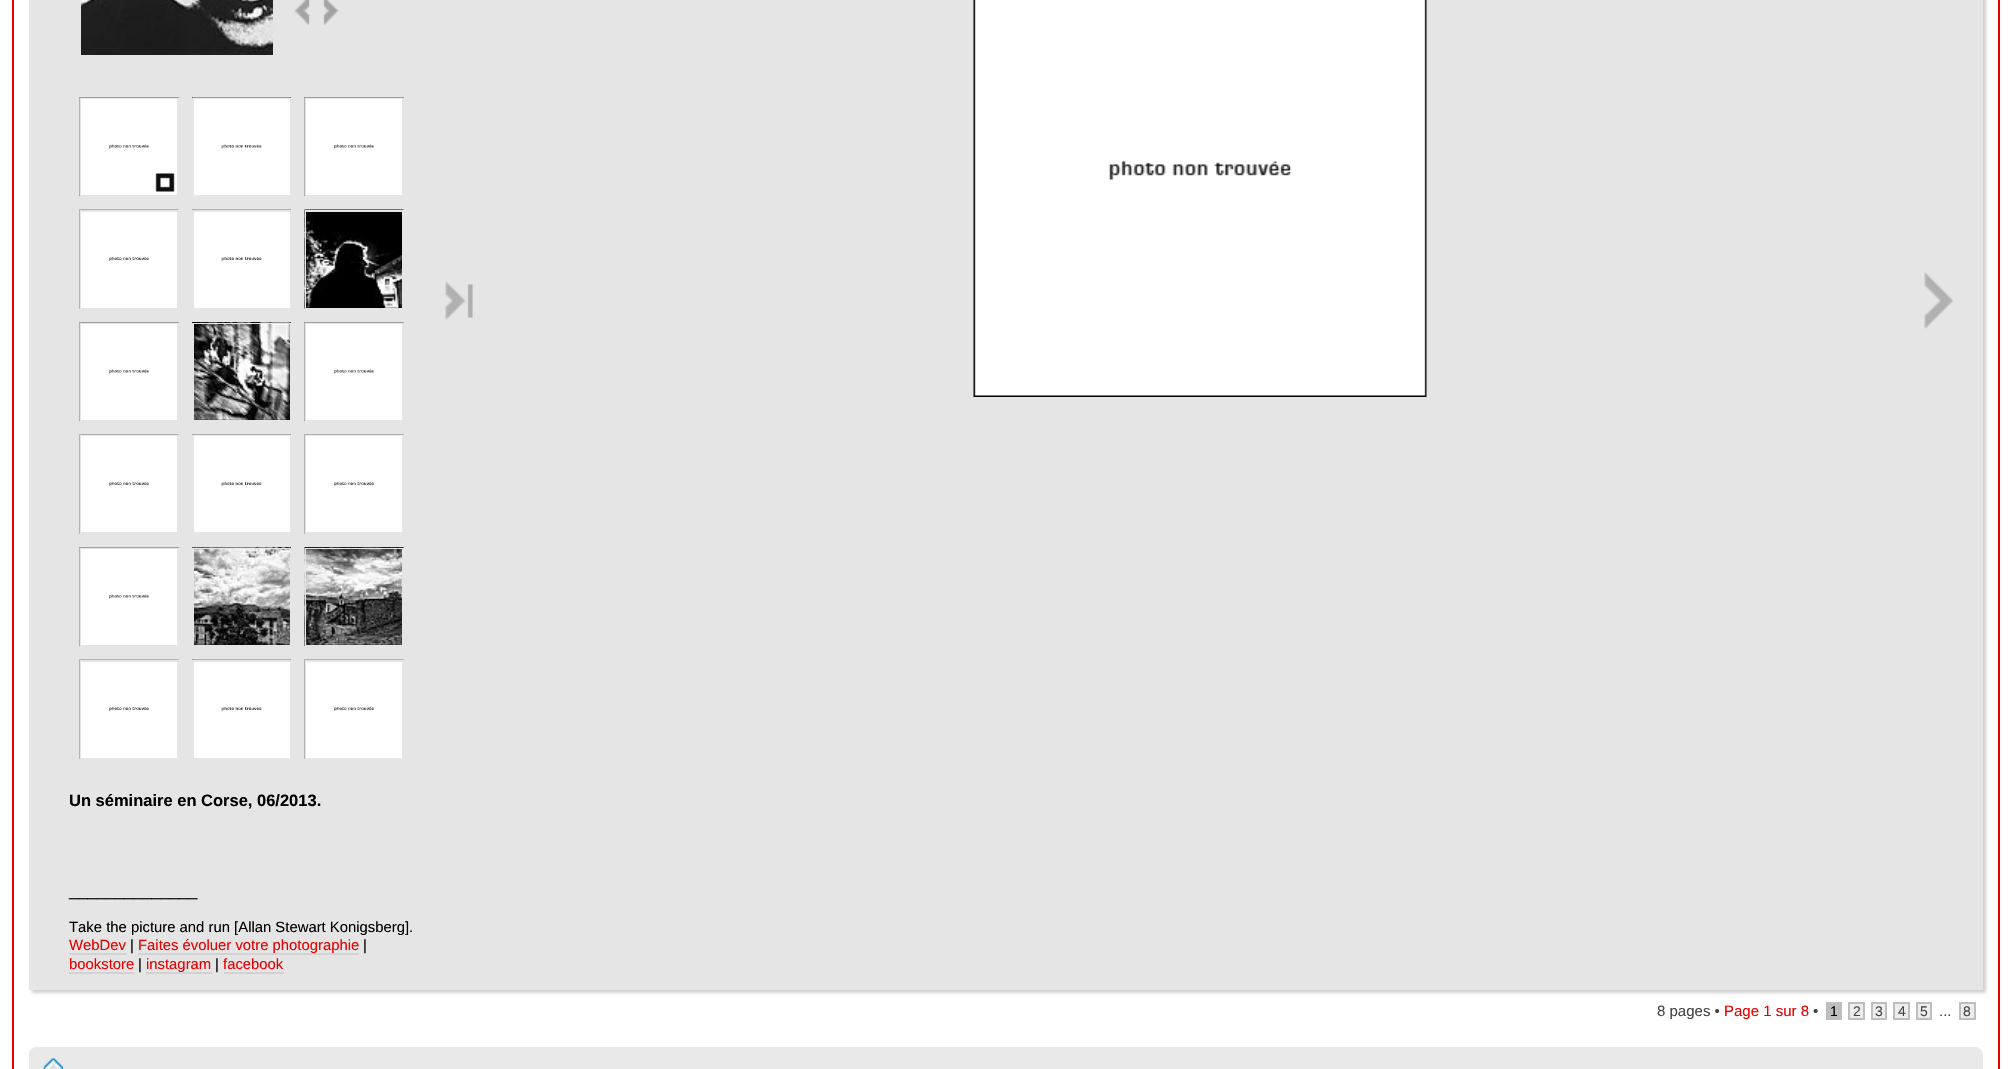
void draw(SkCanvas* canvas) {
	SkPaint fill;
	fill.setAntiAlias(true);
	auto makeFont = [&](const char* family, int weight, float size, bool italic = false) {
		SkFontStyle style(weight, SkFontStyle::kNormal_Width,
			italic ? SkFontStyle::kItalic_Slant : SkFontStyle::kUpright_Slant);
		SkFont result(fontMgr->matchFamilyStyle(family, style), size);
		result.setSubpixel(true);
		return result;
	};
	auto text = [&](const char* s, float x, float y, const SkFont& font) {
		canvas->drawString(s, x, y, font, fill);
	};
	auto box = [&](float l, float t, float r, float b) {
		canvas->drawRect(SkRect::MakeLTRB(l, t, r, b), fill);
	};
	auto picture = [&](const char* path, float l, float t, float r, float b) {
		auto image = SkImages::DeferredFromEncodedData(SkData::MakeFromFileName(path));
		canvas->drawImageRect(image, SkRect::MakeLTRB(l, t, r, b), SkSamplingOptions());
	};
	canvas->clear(0xFFFFFFFF);
	fill.setStyle(SkPaint::kStroke_Style);
	fill.setStrokeWidth(2);
	fill.setColor(0xFFE70000);
	canvas->drawRect(SkRect::MakeLTRB(13, -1, 1999, 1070), fill);
	fill.setStyle(SkPaint::kFill_Style);
	fill.setColor(0xFFD1D1D1);
	fill.setMaskFilter(SkMaskFilter::MakeBlur(kNormal_SkBlurStyle, 1.5f));
	canvas->drawRect(SkRect::MakeLTRB(32, -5, 1986, 993), fill);
	fill.setMaskFilter(nullptr);
	fill.setColor(0xFFE5E5E5);
	box(29, 0, 1983, 990);
	picture("image0.png", 445, 281, 473, 320);
	picture("image1.png", 973, 0, 1427, 397);
	picture("image2.png", 1924, 272, 1954, 329);
	picture("image3.png", 81, 0, 273, 55);
	picture("image4.png", 294, 0, 310, 25);
	picture("image5.png", 323, 0, 339, 25);
	picture("image6.png", 79, 97, 179, 196);
	canvas->save();
	canvas->clipRect(SkRect::MakeLTRB(80, 98, 179, 197));
	canvas->drawPath(SkPathBuilder(SkPathFillType::kEvenOdd).moveTo(-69, -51).lineTo(327, -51).lineTo(327, 345).lineTo(-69, 345).close().moveTo(78, 96).lineTo(177, 96).lineTo(177, 195).lineTo(78, 195).close().detach(), fill);
	canvas->drawPath(SkPathBuilder(SkPathFillType::kEvenOdd).moveTo(-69, -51).lineTo(327, -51).lineTo(327, 345).lineTo(-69, 345).close().moveTo(81, 99).lineTo(180, 99).lineTo(180, 198).lineTo(81, 198).close().detach(), fill);
	canvas->restore();
	picture("image7.png", 155, 173, 175, 192);
	picture("image8.png", 192, 97, 291, 195);
	canvas->save();
	canvas->clipRect(SkRect::MakeLTRB(192, 98, 291, 197));
	canvas->drawPath(SkPathBuilder(SkPathFillType::kEvenOdd).moveTo(44, -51).lineTo(440, -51).lineTo(440, 345).lineTo(44, 345).close().moveTo(190, 96).lineTo(290, 96).lineTo(290, 195).lineTo(190, 195).close().detach(), fill);
	canvas->drawPath(SkPathBuilder(SkPathFillType::kEvenOdd).moveTo(44, -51).lineTo(440, -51).lineTo(440, 345).lineTo(44, 345).close().moveTo(194, 99).lineTo(292, 99).lineTo(292, 198).lineTo(194, 198).close().detach(), fill);
	canvas->restore();
	picture("image6.png", 304, 97, 404, 196);
	canvas->save();
	canvas->clipRect(SkRect::MakeLTRB(305, 98, 404, 197));
	canvas->drawPath(SkPathBuilder(SkPathFillType::kEvenOdd).moveTo(156, -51).lineTo(552, -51).lineTo(552, 345).lineTo(156, 345).close().moveTo(303, 96).lineTo(402, 96).lineTo(402, 195).lineTo(303, 195).close().detach(), fill);
	canvas->drawPath(SkPathBuilder(SkPathFillType::kEvenOdd).moveTo(156, -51).lineTo(552, -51).lineTo(552, 345).lineTo(156, 345).close().moveTo(306, 99).lineTo(405, 99).lineTo(405, 198).lineTo(306, 198).close().detach(), fill);
	canvas->restore();
	picture("image9.png", 79, 209, 179, 309);
	canvas->save();
	canvas->clipRect(SkRect::MakeLTRB(80, 210, 179, 309));
	canvas->drawPath(SkPathBuilder(SkPathFillType::kEvenOdd).moveTo(-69, 62).lineTo(327, 62).lineTo(327, 458).lineTo(-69, 458).close().moveTo(78, 208).lineTo(177, 208).lineTo(177, 308).lineTo(78, 308).close().detach(), fill);
	canvas->drawPath(SkPathBuilder(SkPathFillType::kEvenOdd).moveTo(-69, 62).lineTo(327, 62).lineTo(327, 458).lineTo(-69, 458).close().moveTo(81, 212).lineTo(180, 212).lineTo(180, 310).lineTo(81, 310).close().detach(), fill);
	canvas->restore();
	picture("image10.png", 192, 209, 291, 308);
	canvas->save();
	canvas->clipRect(SkRect::MakeLTRB(192, 210, 291, 309));
	canvas->drawPath(SkPathBuilder(SkPathFillType::kEvenOdd).moveTo(44, 62).lineTo(440, 62).lineTo(440, 458).lineTo(44, 458).close().moveTo(190, 208).lineTo(290, 208).lineTo(290, 308).lineTo(190, 308).close().detach(), fill);
	canvas->drawPath(SkPathBuilder(SkPathFillType::kEvenOdd).moveTo(44, 62).lineTo(440, 62).lineTo(440, 458).lineTo(44, 458).close().moveTo(194, 212).lineTo(292, 212).lineTo(292, 310).lineTo(194, 310).close().detach(), fill);
	canvas->restore();
	picture("image11.png", 304, 209, 404, 309);
	canvas->save();
	canvas->clipRect(SkRect::MakeLTRB(305, 210, 404, 309));
	canvas->drawPath(SkPathBuilder(SkPathFillType::kEvenOdd).moveTo(156, 62).lineTo(552, 62).lineTo(552, 458).lineTo(156, 458).close().moveTo(303, 208).lineTo(402, 208).lineTo(402, 308).lineTo(303, 308).close().detach(), fill);
	canvas->drawPath(SkPathBuilder(SkPathFillType::kEvenOdd).moveTo(156, 62).lineTo(552, 62).lineTo(552, 458).lineTo(156, 458).close().moveTo(306, 212).lineTo(405, 212).lineTo(405, 310).lineTo(306, 310).close().detach(), fill);
	canvas->restore();
	picture("image12.png", 79, 322, 179, 421);
	canvas->save();
	canvas->clipRect(SkRect::MakeLTRB(80, 323, 179, 422));
	canvas->drawPath(SkPathBuilder(SkPathFillType::kEvenOdd).moveTo(-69, 174).lineTo(327, 174).lineTo(327, 570).lineTo(-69, 570).close().moveTo(78, 321).lineTo(177, 321).lineTo(177, 420).lineTo(78, 420).close().detach(), fill);
	canvas->drawPath(SkPathBuilder(SkPathFillType::kEvenOdd).moveTo(-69, 174).lineTo(327, 174).lineTo(327, 570).lineTo(-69, 570).close().moveTo(81, 324).lineTo(180, 324).lineTo(180, 423).lineTo(81, 423).close().detach(), fill);
	canvas->restore();
	picture("image13.png", 192, 322, 291, 420);
	canvas->save();
	canvas->clipRect(SkRect::MakeLTRB(192, 323, 291, 422));
	canvas->drawPath(SkPathBuilder(SkPathFillType::kEvenOdd).moveTo(44, 174).lineTo(440, 174).lineTo(440, 570).lineTo(44, 570).close().moveTo(190, 321).lineTo(290, 321).lineTo(290, 420).lineTo(190, 420).close().detach(), fill);
	canvas->drawPath(SkPathBuilder(SkPathFillType::kEvenOdd).moveTo(44, 174).lineTo(440, 174).lineTo(440, 570).lineTo(44, 570).close().moveTo(194, 324).lineTo(292, 324).lineTo(292, 423).lineTo(194, 423).close().detach(), fill);
	canvas->restore();
	picture("image12.png", 304, 322, 404, 421);
	canvas->save();
	canvas->clipRect(SkRect::MakeLTRB(305, 323, 404, 422));
	canvas->drawPath(SkPathBuilder(SkPathFillType::kEvenOdd).moveTo(156, 174).lineTo(552, 174).lineTo(552, 570).lineTo(156, 570).close().moveTo(303, 321).lineTo(402, 321).lineTo(402, 420).lineTo(303, 420).close().detach(), fill);
	canvas->drawPath(SkPathBuilder(SkPathFillType::kEvenOdd).moveTo(156, 174).lineTo(552, 174).lineTo(552, 570).lineTo(156, 570).close().moveTo(306, 324).lineTo(405, 324).lineTo(405, 423).lineTo(306, 423).close().detach(), fill);
	canvas->restore();
	picture("image9.png", 79, 434, 179, 534);
	canvas->save();
	canvas->clipRect(SkRect::MakeLTRB(80, 435, 179, 534));
	canvas->drawPath(SkPathBuilder(SkPathFillType::kEvenOdd).moveTo(-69, 286).lineTo(327, 286).lineTo(327, 682).lineTo(-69, 682).close().moveTo(78, 434).lineTo(177, 434).lineTo(177, 532).lineTo(78, 532).close().detach(), fill);
	canvas->drawPath(SkPathBuilder(SkPathFillType::kEvenOdd).moveTo(-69, 286).lineTo(327, 286).lineTo(327, 682).lineTo(-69, 682).close().moveTo(81, 436).lineTo(180, 436).lineTo(180, 536).lineTo(81, 536).close().detach(), fill);
	canvas->restore();
	picture("image14.png", 192, 434, 291, 532);
	canvas->save();
	canvas->clipRect(SkRect::MakeLTRB(192, 435, 291, 534));
	canvas->drawPath(SkPathBuilder(SkPathFillType::kEvenOdd).moveTo(44, 286).lineTo(440, 286).lineTo(440, 682).lineTo(44, 682).close().moveTo(190, 434).lineTo(290, 434).lineTo(290, 532).lineTo(190, 532).close().detach(), fill);
	canvas->drawPath(SkPathBuilder(SkPathFillType::kEvenOdd).moveTo(44, 286).lineTo(440, 286).lineTo(440, 682).lineTo(44, 682).close().moveTo(194, 436).lineTo(292, 436).lineTo(292, 536).lineTo(194, 536).close().detach(), fill);
	canvas->restore();
	picture("image9.png", 304, 434, 404, 534);
	canvas->save();
	canvas->clipRect(SkRect::MakeLTRB(305, 435, 404, 534));
	canvas->drawPath(SkPathBuilder(SkPathFillType::kEvenOdd).moveTo(156, 286).lineTo(552, 286).lineTo(552, 682).lineTo(156, 682).close().moveTo(303, 434).lineTo(402, 434).lineTo(402, 532).lineTo(303, 532).close().detach(), fill);
	canvas->drawPath(SkPathBuilder(SkPathFillType::kEvenOdd).moveTo(156, 286).lineTo(552, 286).lineTo(552, 682).lineTo(156, 682).close().moveTo(306, 436).lineTo(405, 436).lineTo(405, 536).lineTo(306, 536).close().detach(), fill);
	canvas->restore();
	picture("image12.png", 79, 547, 179, 646);
	canvas->save();
	canvas->clipRect(SkRect::MakeLTRB(80, 548, 179, 647));
	canvas->drawPath(SkPathBuilder(SkPathFillType::kEvenOdd).moveTo(-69, 399).lineTo(327, 399).lineTo(327, 795).lineTo(-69, 795).close().moveTo(78, 546).lineTo(177, 546).lineTo(177, 645).lineTo(78, 645).close().detach(), fill);
	canvas->drawPath(SkPathBuilder(SkPathFillType::kEvenOdd).moveTo(-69, 399).lineTo(327, 399).lineTo(327, 795).lineTo(-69, 795).close().moveTo(81, 549).lineTo(180, 549).lineTo(180, 648).lineTo(81, 648).close().detach(), fill);
	canvas->restore();
	picture("image15.png", 192, 547, 291, 645);
	canvas->save();
	canvas->clipRect(SkRect::MakeLTRB(192, 548, 291, 647));
	canvas->drawPath(SkPathBuilder(SkPathFillType::kEvenOdd).moveTo(44, 399).lineTo(440, 399).lineTo(440, 795).lineTo(44, 795).close().moveTo(190, 546).lineTo(290, 546).lineTo(290, 645).lineTo(190, 645).close().detach(), fill);
	canvas->drawPath(SkPathBuilder(SkPathFillType::kEvenOdd).moveTo(44, 399).lineTo(440, 399).lineTo(440, 795).lineTo(44, 795).close().moveTo(194, 549).lineTo(292, 549).lineTo(292, 648).lineTo(194, 648).close().detach(), fill);
	canvas->restore();
	picture("image16.png", 304, 547, 404, 646);
	canvas->save();
	canvas->clipRect(SkRect::MakeLTRB(305, 548, 404, 647));
	canvas->drawPath(SkPathBuilder(SkPathFillType::kEvenOdd).moveTo(156, 399).lineTo(552, 399).lineTo(552, 795).lineTo(156, 795).close().moveTo(303, 546).lineTo(402, 546).lineTo(402, 645).lineTo(303, 645).close().detach(), fill);
	canvas->drawPath(SkPathBuilder(SkPathFillType::kEvenOdd).moveTo(156, 399).lineTo(552, 399).lineTo(552, 795).lineTo(156, 795).close().moveTo(306, 549).lineTo(405, 549).lineTo(405, 648).lineTo(306, 648).close().detach(), fill);
	canvas->restore();
	picture("image9.png", 79, 659, 179, 759);
	canvas->save();
	canvas->clipRect(SkRect::MakeLTRB(80, 660, 179, 759));
	canvas->drawPath(SkPathBuilder(SkPathFillType::kEvenOdd).moveTo(-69, 512).lineTo(327, 512).lineTo(327, 908).lineTo(-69, 908).close().moveTo(78, 658).lineTo(177, 658).lineTo(177, 758).lineTo(78, 758).close().detach(), fill);
	canvas->drawPath(SkPathBuilder(SkPathFillType::kEvenOdd).moveTo(-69, 512).lineTo(327, 512).lineTo(327, 908).lineTo(-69, 908).close().moveTo(81, 662).lineTo(180, 662).lineTo(180, 760).lineTo(81, 760).close().detach(), fill);
	canvas->restore();
	picture("image10.png", 192, 659, 291, 758);
	canvas->save();
	canvas->clipRect(SkRect::MakeLTRB(192, 660, 291, 759));
	canvas->drawPath(SkPathBuilder(SkPathFillType::kEvenOdd).moveTo(44, 512).lineTo(440, 512).lineTo(440, 908).lineTo(44, 908).close().moveTo(190, 658).lineTo(290, 658).lineTo(290, 758).lineTo(190, 758).close().detach(), fill);
	canvas->drawPath(SkPathBuilder(SkPathFillType::kEvenOdd).moveTo(44, 512).lineTo(440, 512).lineTo(440, 908).lineTo(44, 908).close().moveTo(194, 662).lineTo(292, 662).lineTo(292, 760).lineTo(194, 760).close().detach(), fill);
	canvas->restore();
	picture("image9.png", 304, 659, 404, 759);
	canvas->save();
	canvas->clipRect(SkRect::MakeLTRB(305, 660, 404, 759));
	canvas->drawPath(SkPathBuilder(SkPathFillType::kEvenOdd).moveTo(156, 512).lineTo(552, 512).lineTo(552, 908).lineTo(156, 908).close().moveTo(303, 658).lineTo(402, 658).lineTo(402, 758).lineTo(303, 758).close().detach(), fill);
	canvas->drawPath(SkPathBuilder(SkPathFillType::kEvenOdd).moveTo(156, 512).lineTo(552, 512).lineTo(552, 908).lineTo(156, 908).close().moveTo(306, 662).lineTo(405, 662).lineTo(405, 760).lineTo(306, 760).close().detach(), fill);
	canvas->restore();
	fill.setColor(0xFFD2D2D2);
	box(69, 953, 126, 955);
	box(138, 953, 359, 955);
	box(69, 972, 134, 974);
	box(146, 972, 212, 974);
	box(224, 972, 284, 974);
	fill.setColor(0xFFBEBEBE);
	box(1826, 1002, 1842, 1020);
	fill.setColor(0xFFECEDEE);
	canvas->drawRect(SkRect::MakeLTRB(1849, 1003, 1864, 1019), fill);
	fill.setStyle(SkPaint::kStroke_Style);
	fill.setColor(0xFFBEBEBE);
	canvas->drawRect(SkRect::MakeLTRB(1849, 1003, 1864, 1019), fill);
	fill.setStyle(SkPaint::kFill_Style);
	fill.setColor(0xFFECEDEE);
	canvas->drawRect(SkRect::MakeLTRB(1872, 1003, 1886, 1019), fill);
	fill.setStyle(SkPaint::kStroke_Style);
	fill.setColor(0xFFBEBEBE);
	canvas->drawRect(SkRect::MakeLTRB(1872, 1003, 1886, 1019), fill);
	fill.setStyle(SkPaint::kFill_Style);
	fill.setColor(0xFFECEDEE);
	canvas->drawRect(SkRect::MakeLTRB(1894, 1003, 1909, 1019), fill);
	fill.setStyle(SkPaint::kStroke_Style);
	fill.setColor(0xFFBEBEBE);
	canvas->drawRect(SkRect::MakeLTRB(1894, 1003, 1909, 1019), fill);
	fill.setStyle(SkPaint::kFill_Style);
	fill.setColor(0xFFECEDEE);
	canvas->drawRect(SkRect::MakeLTRB(1917, 1003, 1931, 1019), fill);
	fill.setStyle(SkPaint::kStroke_Style);
	fill.setColor(0xFFBEBEBE);
	canvas->drawRect(SkRect::MakeLTRB(1917, 1003, 1931, 1019), fill);
	fill.setStyle(SkPaint::kFill_Style);
	fill.setColor(0xFFECEDEE);
	canvas->drawRect(SkRect::MakeLTRB(1960, 1003, 1975, 1019), fill);
	fill.setStyle(SkPaint::kStroke_Style);
	fill.setColor(0xFFBEBEBE);
	canvas->drawRect(SkRect::MakeLTRB(1960, 1003, 1975, 1019), fill);
	fill.setStyle(SkPaint::kFill_Style);
	fill.setColor(0xFFE9E9E9);
	box(29, 1047, 1983, 1069);
	picture("image17.png", 29, 1047, 36, 1054);
	picture("image18.png", 1976, 1047, 1983, 1054);
	picture("image19.png", 43, 1058, 63, 1069);
	auto font1 = makeFont("Liberation Sans", 700, 16.5f);
	fill.setColor(0xFF000000);
	text("Un séminaire en Corse, 06/2013.", 69, 806, font1);
	auto font2 = makeFont("Liberation Sans", 400, 16.5f);
	text("______________", 69, 896, font2);
	auto font3 = makeFont("Liberation Sans", 400, 14.85f);
	text("Take the picture and run [Allan Stewart Konigsberg].", 69, 932, font3);
	fill.setColor(0xFFE70000);
	text("WebDev", 69, 950, font3);
	fill.setColor(0xFF000000);
	text("|", 130, 950, font3);
	fill.setColor(0xFFE70000);
	text("Faites évoluer votre photographie", 138, 950, font3);
	fill.setColor(0xFF000000);
	text("|", 363, 950, font3);
	fill.setColor(0xFFE70000);
	text("bookstore", 69, 969, font3);
	fill.setColor(0xFF000000);
	text("|", 138, 969, font3);
	fill.setColor(0xFFE70000);
	text("instagram", 146, 969, font3);
	fill.setColor(0xFF000000);
	text("|", 215, 969, font3);
	fill.setColor(0xFFE70000);
	text("facebook", 223, 969, font3);
	auto font4 = makeFont("Liberation Sans", 400, 15);
	fill.setColor(0xFF444444);
	text("8 pages •", 1657, 1016, font4);
	fill.setColor(0xFFE70000);
	text("Page 1 sur 8", 1724, 1016, font4);
	fill.setColor(0xFF444444);
	text("•", 1813, 1016, font4);
	auto font5 = makeFont("Liberation Sans", 400, 14);
	fill.setColor(0xFF000000);
	text("1", 1830, 1016, font5);
	fill.setColor(0xFF444444);
	text("2", 1853, 1016, font5);
	text("3", 1875, 1016, font5);
	text("4", 1898, 1016, font5);
	text("5", 1920, 1016, font5);
	text("8", 1963, 1016, font5);
	text("...", 1939, 1016, font4);
}
